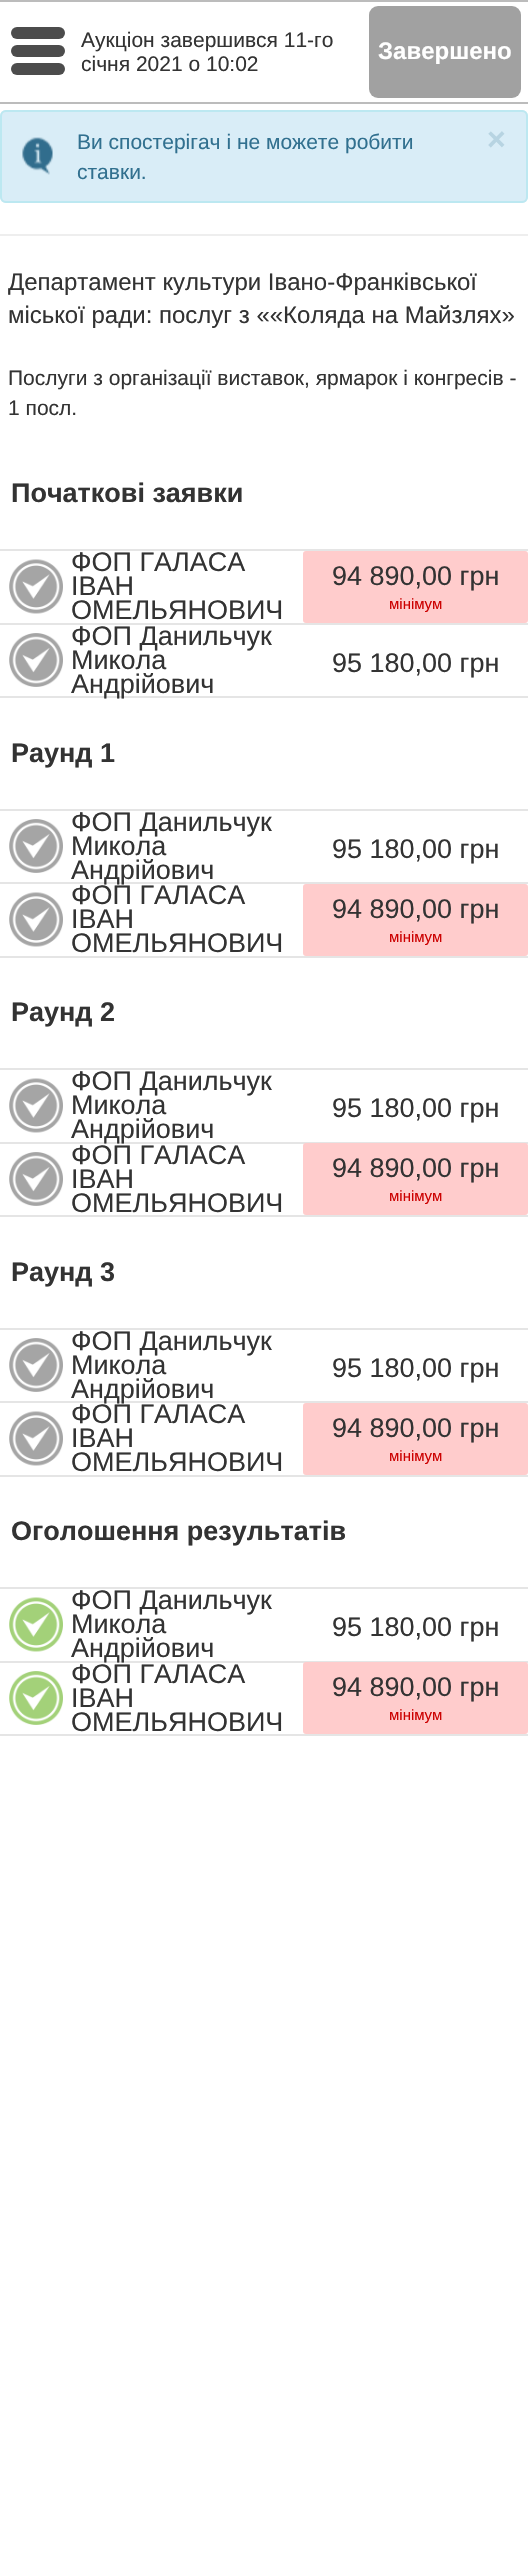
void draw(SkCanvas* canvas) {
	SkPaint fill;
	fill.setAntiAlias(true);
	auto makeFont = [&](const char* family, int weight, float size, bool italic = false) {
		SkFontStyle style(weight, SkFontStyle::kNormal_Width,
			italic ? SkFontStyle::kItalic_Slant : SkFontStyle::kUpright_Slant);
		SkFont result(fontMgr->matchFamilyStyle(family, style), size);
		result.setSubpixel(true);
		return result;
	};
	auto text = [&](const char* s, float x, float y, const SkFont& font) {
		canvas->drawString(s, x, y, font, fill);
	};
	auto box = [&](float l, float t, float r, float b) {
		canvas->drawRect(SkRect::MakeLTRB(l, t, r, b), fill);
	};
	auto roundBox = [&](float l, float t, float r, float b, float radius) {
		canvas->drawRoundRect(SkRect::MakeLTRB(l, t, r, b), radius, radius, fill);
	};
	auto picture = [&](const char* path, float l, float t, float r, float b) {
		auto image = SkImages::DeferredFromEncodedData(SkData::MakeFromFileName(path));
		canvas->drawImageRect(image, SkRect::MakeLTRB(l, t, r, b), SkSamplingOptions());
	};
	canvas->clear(0xFFFFFFFF);
	fill.setColor(0xFFBCBCBC);
	box(0, 0, 528, 2);
	box(0, 102, 528, 104);
	fill.setColor(0xFF4C4C4C);
	roundBox(11, 27, 65, 39, 6);
	roundBox(11, 45, 65, 57, 6);
	roundBox(11, 63, 65, 75, 6);
	fill.setColor(0xFFA1A1A1);
	roundBox(369, 6, 521, 98, 9);
	fill.setColor(0xFFD9EDF7);
	roundBox(0, 110, 528, 203, 6);
	picture("image0.png", 22, 137, 53, 175);
	fill.setStyle(SkPaint::kStroke_Style);
	fill.setStrokeWidth(2);
	fill.setColor(0xFFBCE8F1);
	canvas->drawRoundRect(SkRect::MakeLTRB(1, 111, 527, 202), 5, 5, fill);
	fill.setStyle(SkPaint::kFill_Style);
	fill.setColor(0xFFEEEEEE);
	box(0, 234, 528, 236);
	fill.setColor(0xFFE5E5E5);
	box(0, 549, 528, 551);
	box(0, 623, 528, 625);
	picture("image1.png", 9, 559, 63, 614);
	fill.setColor(0xFFFFCCCC);
	roundBox(303, 551, 528, 623, 3);
	fill.setColor(0xFFE5E5E5);
	box(0, 696, 528, 698);
	picture("image2.png", 9, 633, 63, 687);
	box(0, 809, 528, 811);
	box(0, 882, 528, 884);
	picture("image2.png", 9, 819, 63, 873);
	box(0, 956, 528, 958);
	picture("image1.png", 9, 892, 63, 947);
	fill.setColor(0xFFFFCCCC);
	roundBox(303, 884, 528, 956, 3);
	fill.setColor(0xFFE5E5E5);
	box(0, 1068, 528, 1070);
	box(0, 1142, 528, 1144);
	picture("image1.png", 9, 1078, 63, 1133);
	box(0, 1215, 528, 1217);
	picture("image2.png", 9, 1152, 63, 1206);
	fill.setColor(0xFFFFCCCC);
	roundBox(303, 1143, 528, 1215, 3);
	fill.setColor(0xFFE5E5E5);
	box(0, 1328, 528, 1330);
	box(0, 1401, 528, 1403);
	picture("image2.png", 9, 1338, 63, 1392);
	box(0, 1475, 528, 1477);
	picture("image1.png", 9, 1411, 63, 1466);
	fill.setColor(0xFFFFCCCC);
	roundBox(303, 1403, 528, 1475, 3);
	fill.setColor(0xFFE5E5E5);
	box(0, 1587, 528, 1589);
	box(0, 1661, 528, 1663);
	picture("image3.png", 9, 1597, 63, 1652);
	box(0, 1734, 528, 1736);
	picture("image4.png", 9, 1671, 63, 1725);
	fill.setColor(0xFFFFCCCC);
	roundBox(303, 1662, 528, 1734, 3);
	auto font1 = makeFont("Liberation Sans", 400, 21);
	fill.setColor(0xFF333333);
	text("Аукціон завершився 11-го", 81, 47, font1);
	text("січня 2021 о 10:02", 81, 71, font1);
	auto font2 = makeFont("Liberation Sans", 700, 24);
	fill.setColor(0xFFFFFFFF);
	text("Завершено", 378, 59, font2);
	fill.setColor(0xFF31708F);
	text("Ви спостерігач і не можете робити", 77, 149, font1);
	text("ставки.", 77, 179, font1);
	auto font3 = makeFont("Liberation Sans", 700, 32);
	fill.setColor(0xFFB7D4E2);
	text("×", 487, 150, font3);
	auto font4 = makeFont("Liberation Sans", 400, 24);
	fill.setColor(0xFF333333);
	text("Департамент культури Івано-Франківської", 8, 290, font4);
	text("міської ради: послуг з ««Коляда на Майзлях»", 8, 323, font4);
	text("Послуги з організації виставок, ярмарок і конгресів -", 8, 385, font1);
	text("1 посл.", 8, 415, font1);
	auto font5 = makeFont("Liberation Sans", 700, 27);
	text("Початкові заявки", 11, 502, font5);
	auto font6 = makeFont("Liberation Sans", 400, 27);
	text("ФОП ГАЛАСА", 71, 571, font6);
	text("ІВАН", 71, 595, font6);
	text("ОМЕЛЬЯНОВИЧ", 71, 619, font6);
	text("94 890,00 грн", 332, 585, font6);
	auto font7 = makeFont("Liberation Sans", 400, 15);
	fill.setColor(0xFFCC0000);
	text("мінімум", 389, 609, font7);
	fill.setColor(0xFF333333);
	text("ФОП Данильчук", 71, 645, font6);
	text("Микола", 71, 669, font6);
	text("Андрійович", 71, 693, font6);
	text("95 180,00 грн", 332, 672, font6);
	text("Раунд 1", 11, 762, font5);
	text("ФОП Данильчук", 71, 831, font6);
	text("Микола", 71, 855, font6);
	text("Андрійович", 71, 879, font6);
	text("95 180,00 грн", 332, 858, font6);
	text("ФОП ГАЛАСА", 71, 904, font6);
	text("ІВАН", 71, 928, font6);
	text("ОМЕЛЬЯНОВИЧ", 71, 952, font6);
	text("94 890,00 грн", 332, 918, font6);
	fill.setColor(0xFFCC0000);
	text("мінімум", 389, 942, font7);
	fill.setColor(0xFF333333);
	text("Раунд 2", 11, 1021, font5);
	text("ФОП Данильчук", 71, 1090, font6);
	text("Микола", 71, 1114, font6);
	text("Андрійович", 71, 1138, font6);
	text("95 180,00 грн", 332, 1117, font6);
	text("ФОП ГАЛАСА", 71, 1164, font6);
	text("ІВАН", 71, 1188, font6);
	text("ОМЕЛЬЯНОВИЧ", 71, 1212, font6);
	text("94 890,00 грн", 332, 1177, font6);
	fill.setColor(0xFFCC0000);
	text("мінімум", 389, 1201, font7);
	fill.setColor(0xFF333333);
	text("Раунд 3", 11, 1281, font5);
	text("ФОП Данильчук", 71, 1350, font6);
	text("Микола", 71, 1374, font6);
	text("Андрійович", 71, 1398, font6);
	text("95 180,00 грн", 332, 1377, font6);
	text("ФОП ГАЛАСА", 71, 1423, font6);
	text("ІВАН", 71, 1447, font6);
	text("ОМЕЛЬЯНОВИЧ", 71, 1471, font6);
	text("94 890,00 грн", 332, 1437, font6);
	fill.setColor(0xFFCC0000);
	text("мінімум", 389, 1461, font7);
	fill.setColor(0xFF333333);
	text("Оголошення результатів", 11, 1540, font5);
	text("ФОП Данильчук", 71, 1609, font6);
	text("Микола", 71, 1633, font6);
	text("Андрійович", 71, 1657, font6);
	text("95 180,00 грн", 332, 1636, font6);
	text("ФОП ГАЛАСА", 71, 1683, font6);
	text("ІВАН", 71, 1707, font6);
	text("ОМЕЛЬЯНОВИЧ", 71, 1731, font6);
	text("94 890,00 грн", 332, 1696, font6);
	fill.setColor(0xFFCC0000);
	text("мінімум", 389, 1720, font7);
}
